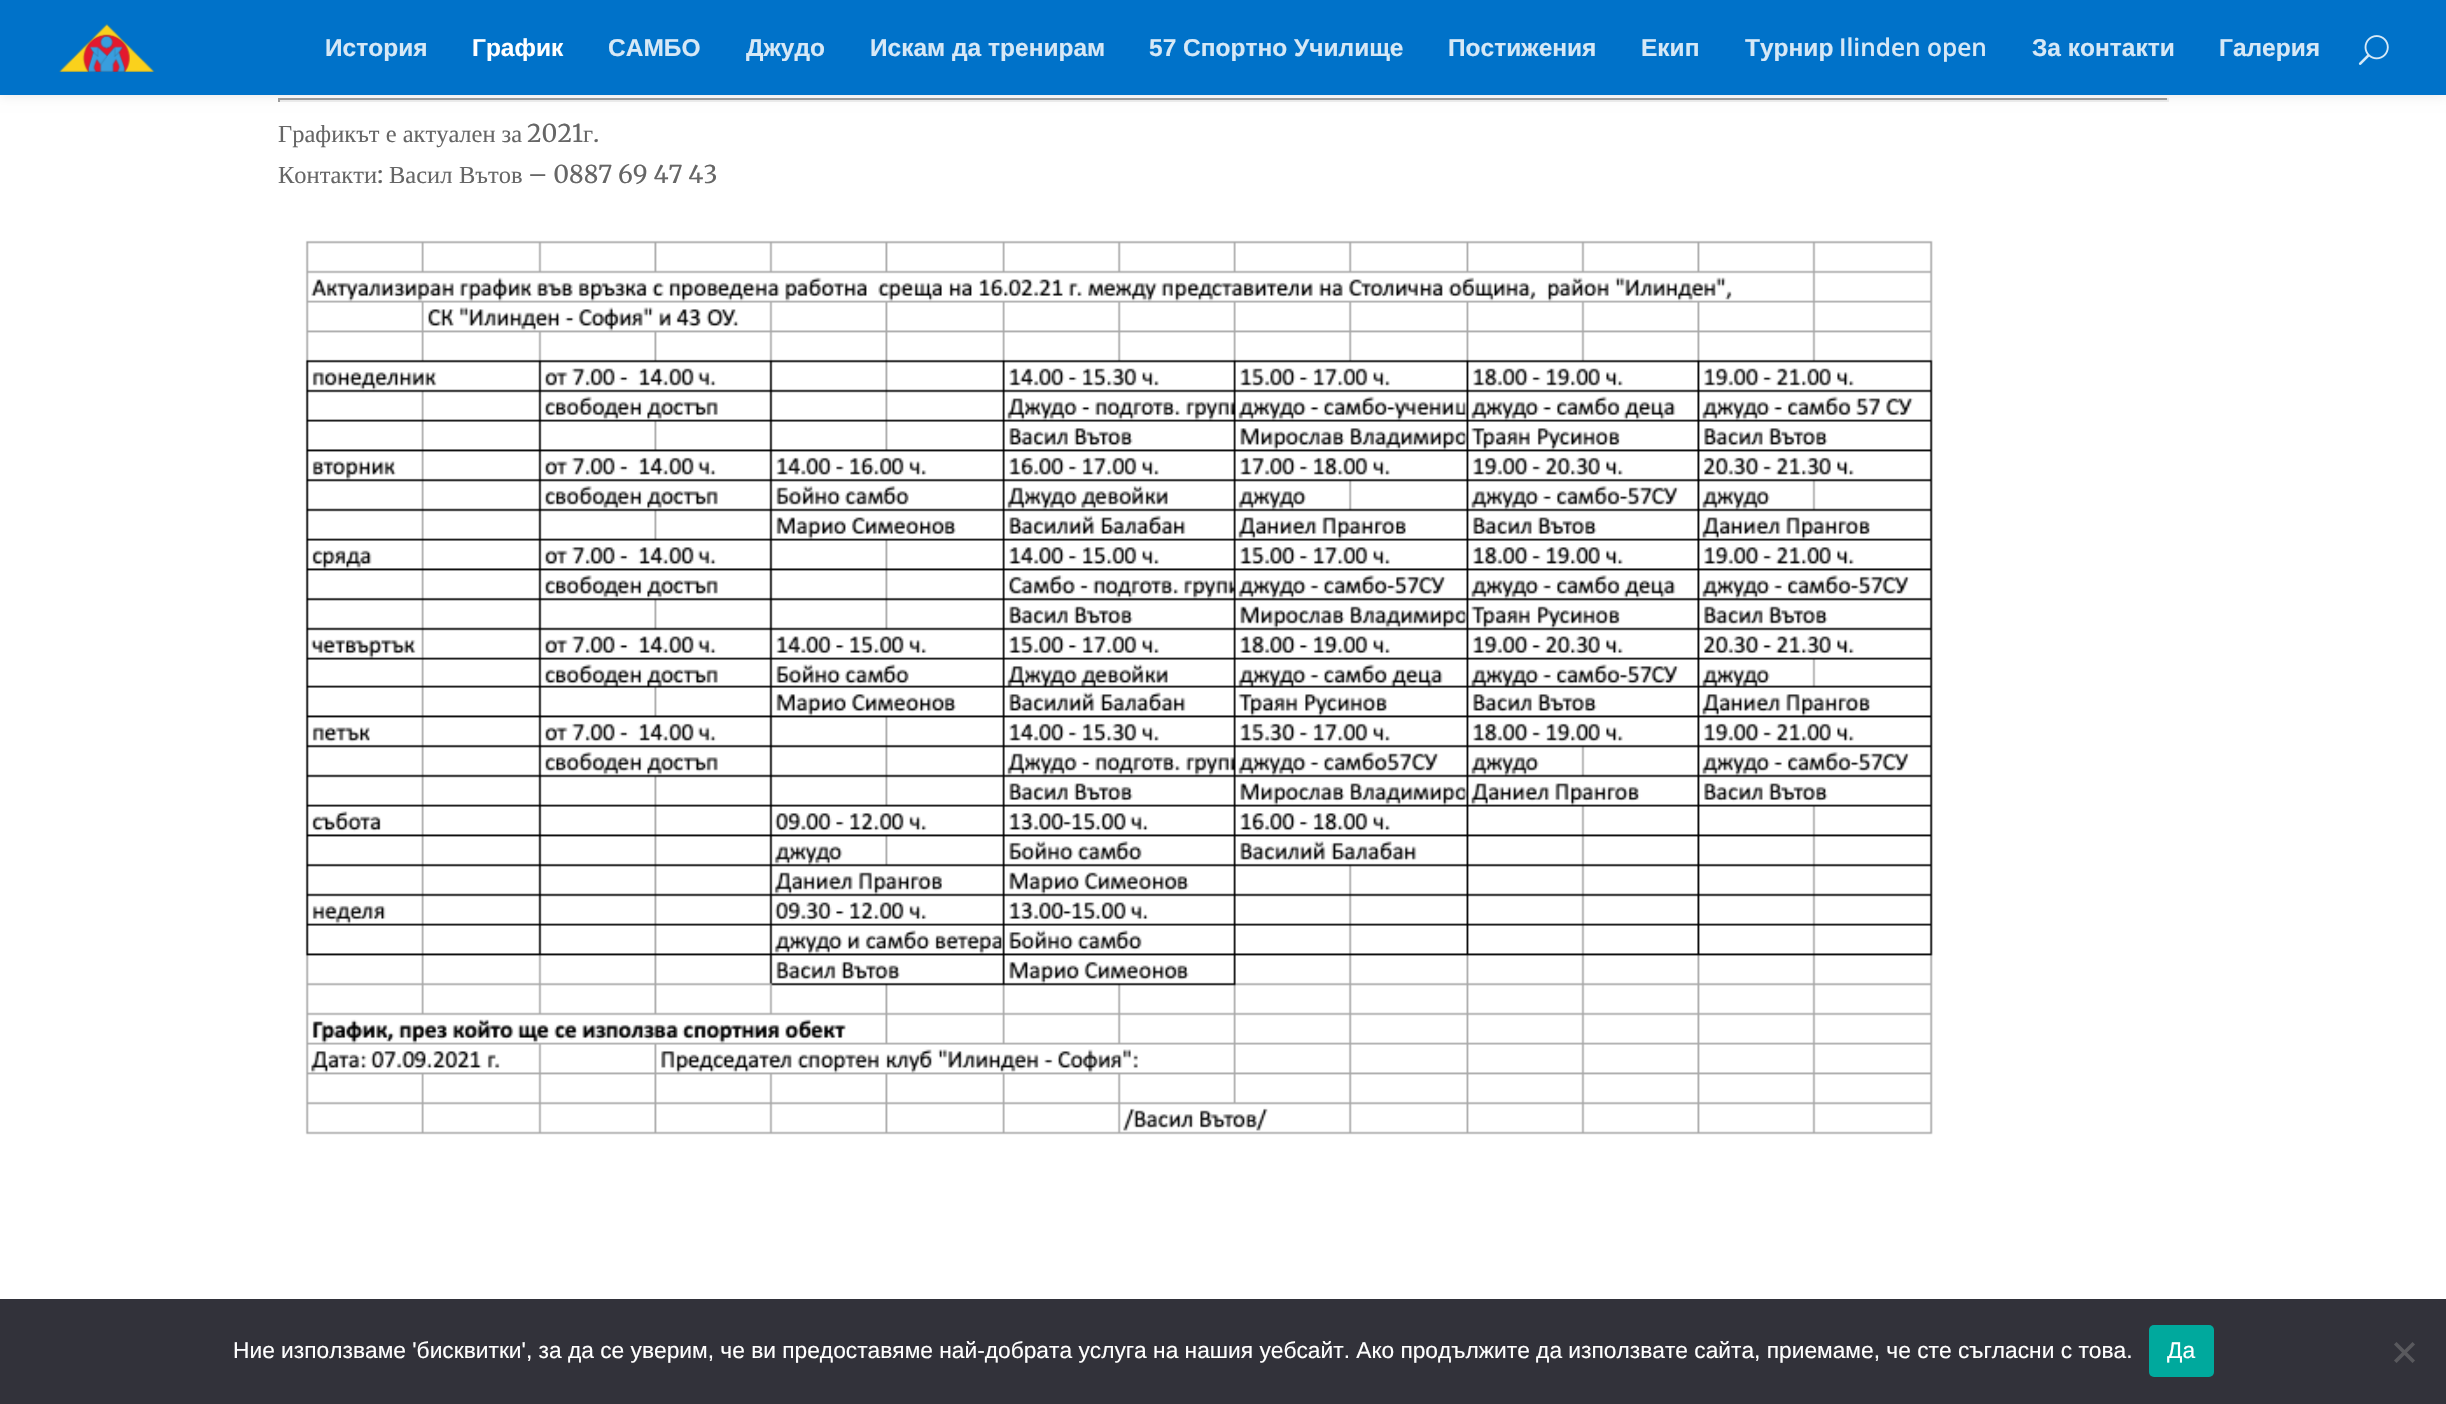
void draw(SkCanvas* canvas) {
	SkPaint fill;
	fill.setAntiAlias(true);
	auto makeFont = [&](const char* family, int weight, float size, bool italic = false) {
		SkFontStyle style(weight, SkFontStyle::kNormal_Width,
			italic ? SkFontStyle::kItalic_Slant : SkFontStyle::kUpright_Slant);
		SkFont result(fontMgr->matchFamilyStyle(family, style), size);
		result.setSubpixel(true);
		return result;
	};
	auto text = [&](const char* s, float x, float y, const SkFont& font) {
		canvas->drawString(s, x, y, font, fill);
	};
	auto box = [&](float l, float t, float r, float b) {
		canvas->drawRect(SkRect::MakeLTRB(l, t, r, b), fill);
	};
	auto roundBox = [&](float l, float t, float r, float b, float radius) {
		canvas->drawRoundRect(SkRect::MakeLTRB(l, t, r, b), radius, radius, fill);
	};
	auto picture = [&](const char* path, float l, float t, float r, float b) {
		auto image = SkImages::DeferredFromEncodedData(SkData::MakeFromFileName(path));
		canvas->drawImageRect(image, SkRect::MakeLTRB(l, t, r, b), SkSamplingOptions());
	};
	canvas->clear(0xFFFFFFFF);
	fill.setColor(0xFF9F9F9F);
	box(278, 98, 2168, 100);
	fill.setColor(0xFFEEEEEE);
	box(2167, 98, 2169, 102);
	box(278, 100, 2168, 102);
	fill.setColor(0xFF9F9F9F);
	box(278, 98, 280, 102);
	fill.setColor(0x1A000000);
	fill.setMaskFilter(SkMaskFilter::MakeBlur(kNormal_SkBlurStyle, 6));
	canvas->drawRect(SkRect::MakeLTRB(0, 0, 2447, 95), fill);
	fill.setMaskFilter(nullptr);
	fill.setColor(0xFF0072C9);
	box(0, 0, 2446, 95);
	picture("image0.png", 59, 23, 155, 72);
	picture("image1.png", 2358, 35, 2389, 65);
	picture("image2.png", 305, 240, 1933, 1135);
	fill.setColor(0xFF32323A);
	box(0, 1299, 2446, 1404);
	fill.setColor(0xFF00A99D);
	roundBox(2149, 1325, 2214, 1377, 5);
	fill.setColor(0xFF59595D);
	canvas->drawPath(SkPathBuilder().moveTo(2412.5f, 1342).lineTo(2415, 1344.5f).lineTo(2396.5f, 1363).lineTo(2394, 1360.5f).close().detach(), fill);
	canvas->drawPath(SkPathBuilder().moveTo(2394, 1344.5f).lineTo(2396.5f, 1342).lineTo(2415, 1360.5f).lineTo(2412.5f, 1363).close().detach(), fill);
	auto font1 = makeFont("Liberation Sans", 700, 24.5f);
	fill.setColor(0xFFD6E8F6);
	text("История", 325, 56, font1);
	fill.setColor(0xFFFFFFFF);
	text("График", 472, 56, font1);
	fill.setColor(0xFFD6E8F6);
	text("САМБО", 608, 56, font1);
	text("Джудо", 746, 56, font1);
	text("Искам да тренирам", 870, 56, font1);
	text("57 Спортно Училище", 1149, 56, font1);
	text("Постижения", 1448, 56, font1);
	text("Екип", 1641, 56, font1);
	text("Турнир", 1745, 56, font1);
	auto font2 = makeFont("Open Sans", 600, 24.5f);
	text("Ilinden open", 1839, 56, font2);
	text("За контакти", 2032, 56, font1);
	text("Галерия", 2219, 56, font1);
	auto font3 = makeFont("Liberation Serif", 400, 24.5f);
	fill.setColor(0xFF666666);
	text("Графикът е актуален за", 278, 142, font3);
	auto font4 = makeFont("Merriweather", 300, 24.5f);
	text("2021", 527, 142, font4);
	text("г", 583, 142, font3);
	text(".", 593, 142, font4);
	text("Контакти", 278, 183, font3);
	text(":", 377, 183, font4);
	text("Васил", 389, 183, font3);
	text("Вътов", 459, 183, font3);
	text("– 0887 69 47 43", 528, 183, font4);
	auto font5 = makeFont("Liberation Sans", 400, 22.75f);
	fill.setColor(0xFFFFFFFF);
	text("Ние използваме 'бисквитки', за да се уверим, че ви предоставяме най-добрата услуга на нашия уебсайт. Ако продължите да използвате сайта, приемаме, че сте съгласни с това.", 233, 1358, font5);
	text("Да", 2167, 1358, font5);
}
